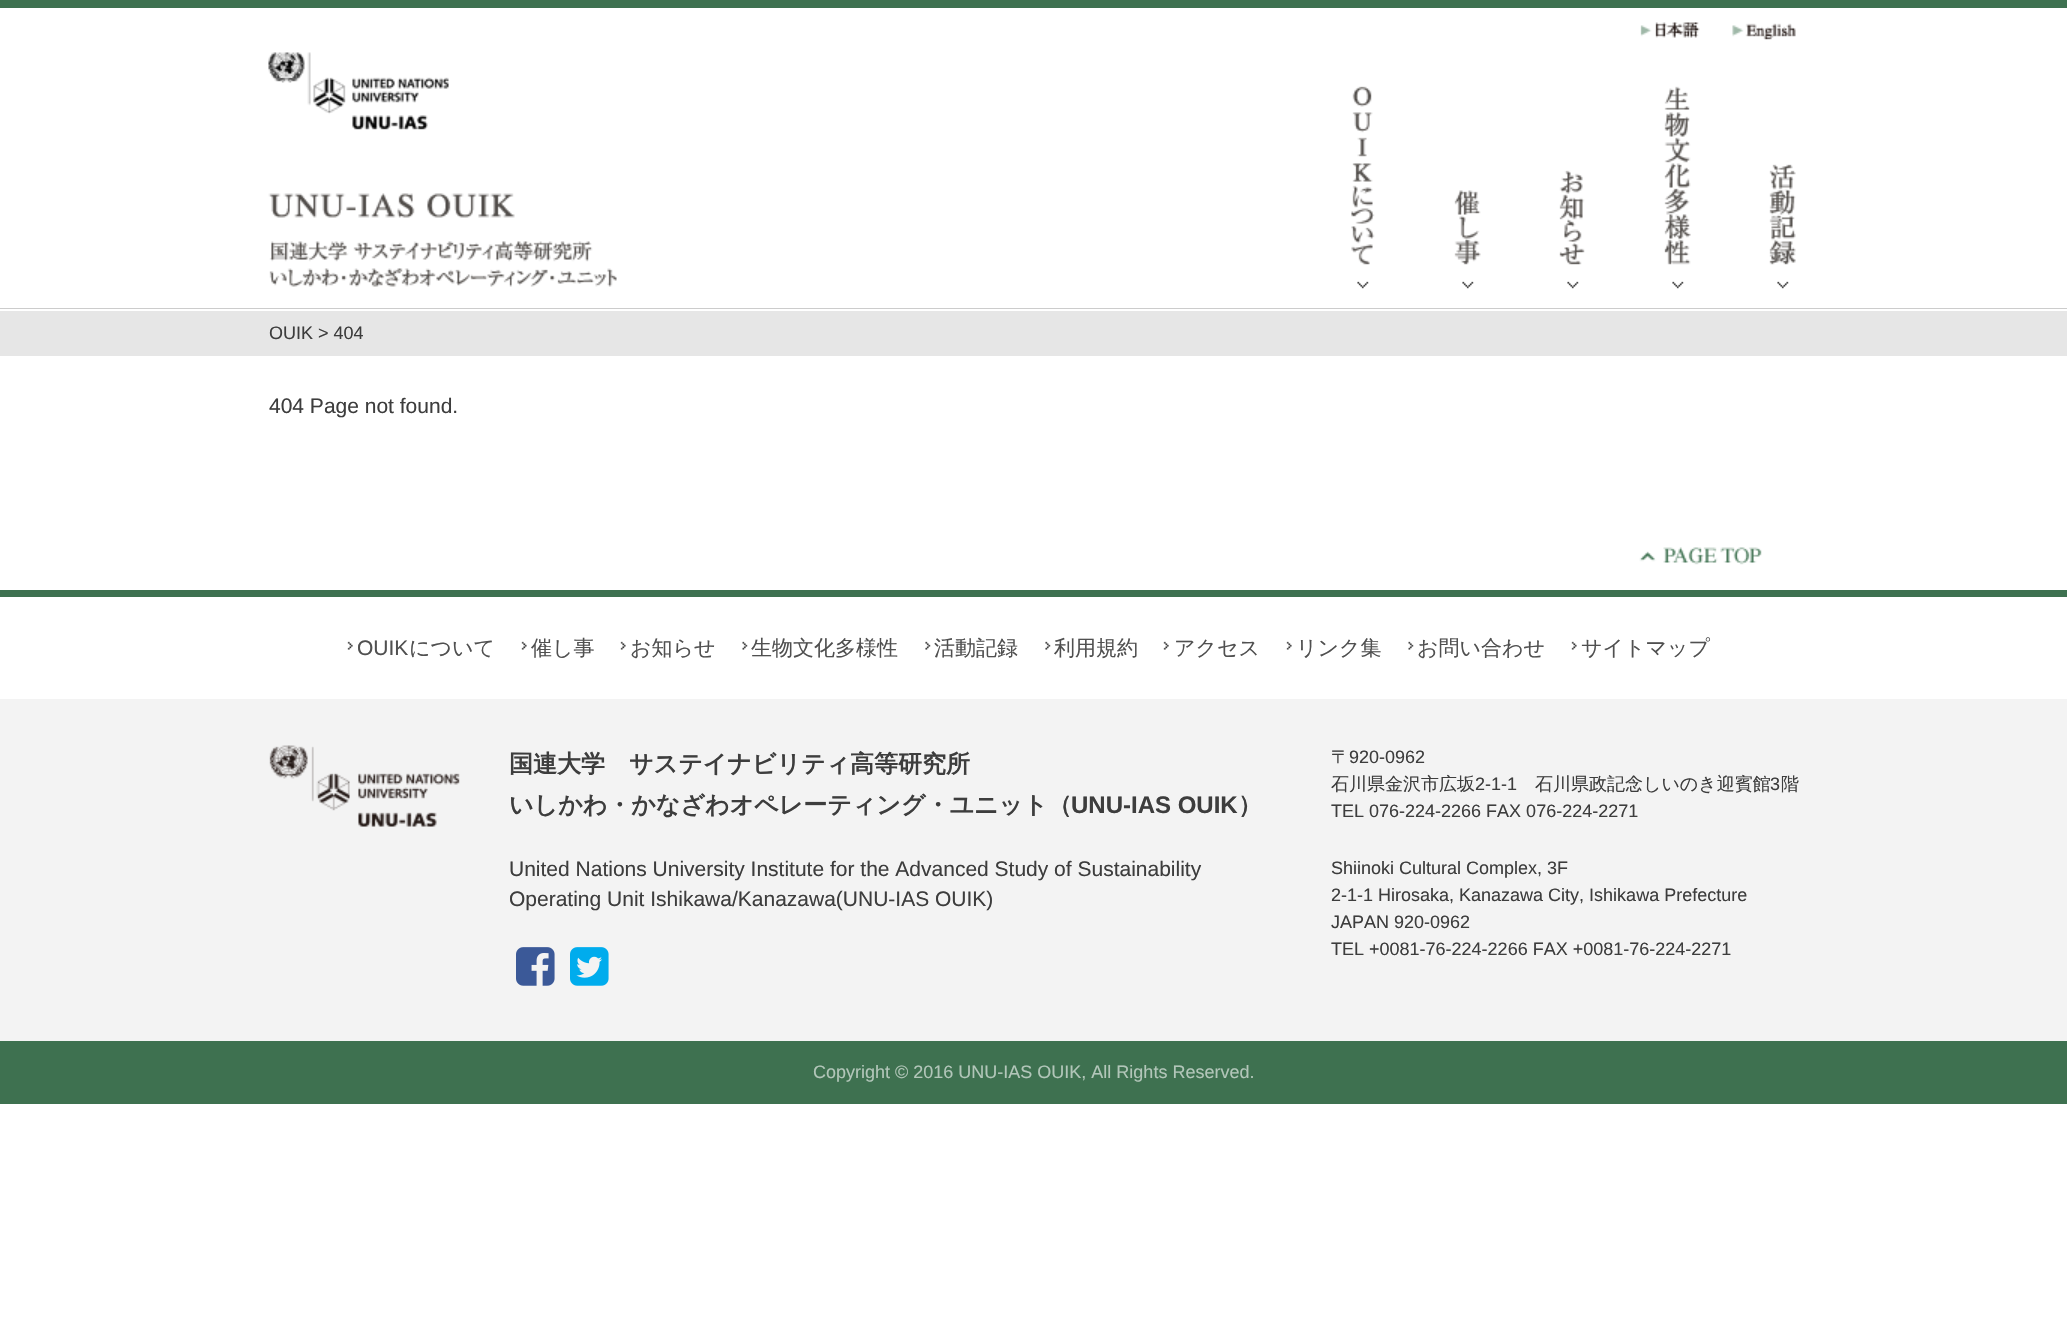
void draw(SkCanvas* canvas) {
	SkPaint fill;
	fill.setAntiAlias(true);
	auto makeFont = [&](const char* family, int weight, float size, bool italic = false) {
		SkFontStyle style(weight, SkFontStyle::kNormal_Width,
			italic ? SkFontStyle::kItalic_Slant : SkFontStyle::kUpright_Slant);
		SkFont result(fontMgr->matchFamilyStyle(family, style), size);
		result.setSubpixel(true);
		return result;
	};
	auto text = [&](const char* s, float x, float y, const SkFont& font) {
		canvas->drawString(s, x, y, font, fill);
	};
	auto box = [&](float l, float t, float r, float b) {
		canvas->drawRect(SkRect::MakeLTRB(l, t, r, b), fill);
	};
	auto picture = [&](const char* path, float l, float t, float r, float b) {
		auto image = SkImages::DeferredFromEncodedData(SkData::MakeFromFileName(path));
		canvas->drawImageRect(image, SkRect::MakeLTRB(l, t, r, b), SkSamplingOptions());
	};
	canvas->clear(0xFFFFFFFF);
	fill.setColor(0xFF3E7150);
	box(0, 0, 2067, 8);
	fill.setColor(0xFFCCCCCC);
	box(0, 308, 2067, 309);
	picture("image0.png", 268, 52, 449, 130);
	picture("image1.png", 268, 193, 617, 287);
	picture("image2.png", 1640, 22, 1700, 38);
	picture("image3.png", 1732, 23, 1796, 40);
	picture("image4.png", 1351, 86, 1375, 289);
	picture("image5.png", 1454, 190, 1481, 289);
	picture("image6.png", 1559, 170, 1585, 289);
	picture("image7.png", 1664, 86, 1691, 289);
	picture("image8.png", 1769, 164, 1796, 289);
	fill.setColor(0xFFE6E6E6);
	box(0, 311, 2067, 356);
	picture("image9.png", 1639, 547, 1762, 565);
	fill.setColor(0xFF3E7150);
	box(0, 590, 2067, 597);
	picture("image10.png", 347, 641, 353, 650);
	picture("image11.png", 521, 641, 527, 650);
	picture("image11.png", 620, 641, 626, 650);
	picture("image12.png", 742, 641, 748, 650);
	picture("image13.png", 925, 641, 931, 650);
	picture("image13.png", 1045, 641, 1051, 650);
	picture("image10.png", 1163, 641, 1169, 650);
	picture("image11.png", 1286, 641, 1292, 650);
	picture("image12.png", 1408, 641, 1414, 650);
	picture("image11.png", 1571, 641, 1577, 650);
	fill.setColor(0xFFF3F3F3);
	box(0, 699, 2067, 1041);
	picture("image14.png", 269, 745, 460, 827);
	picture("image15.png", 516, 947, 555, 986);
	picture("image16.png", 570, 947, 609, 986);
	fill.setColor(0xFF3E7150);
	box(0, 1041, 2067, 1104);
	auto font1 = makeFont("Liberation Sans", 400, 18);
	fill.setColor(0xFF3D3D3D);
	text("OUIK > 404", 269, 339, font1);
	auto font2 = makeFont("Liberation Sans", 400, 21);
	text("404 Page not found.", 269, 413, font2);
	fill.setColor(0xFF505050);
	text("OUIK", 357, 655, font2);
	auto font3 = makeFont("WenQuanYi Zen Hei", 500, 21);
	text("について", 409, 655, font3);
	text("催し事", 531, 655, font3);
	text("お知らせ", 630, 655, font3);
	text("生物文化多様性", 751, 655, font3);
	text("活動記録", 934, 655, font3);
	text("利用規約", 1054, 655, font3);
	text("アクセス", 1174, 655, font3);
	text("リンク集", 1296, 655, font3);
	text("お問い合わせ", 1417, 655, font3);
	text("サイトマップ", 1581, 655, font3);
	auto font4 = makeFont("WenQuanYi Zen Hei", 700, 24);
	fill.setColor(0xFF3D3D3D);
	text("国連大学　サステイナビリティ高等研究所", 509, 772, font4);
	text("いしかわ・かなざわオペレーティング・ユニット（", 509, 813, font4);
	auto font5 = makeFont("Liberation Sans", 700, 24);
	text("UNU-IAS OUIK", 1071, 813, font5);
	text("）", 1238, 813, font4);
	text("United Nations University Institute for the Advanced Study of Sustainability", 509, 876, font2);
	text("Operating Unit Ishikawa/Kanazawa(UNU-IAS OUIK)", 509, 906, font2);
	auto font6 = makeFont("WenQuanYi Zen Hei", 500, 18);
	text("〒", 1331, 763, font6);
	text("920-0962", 1349, 763, font1);
	text("石川県金沢市広坂", 1331, 790, font6);
	text("2-1-1", 1475, 790, font1);
	text("石川県政記念しいのき迎賓館", 1535, 790, font6);
	text("3", 1770, 790, font1);
	text("階", 1781, 790, font6);
	text("TEL 076-224-2266 FAX 076-224-2271", 1331, 817, font1);
	text("Shiinoki Cultural Complex, 3F", 1331, 874, font1);
	text("2-1-1 Hirosaka, Kanazawa City, Ishikawa Prefecture", 1331, 901, font1);
	text("JAPAN 920-0962", 1331, 928, font1);
	text("TEL +0081-76-224-2266 FAX +0081-76-224-2271", 1331, 955, font1);
	fill.setColor(0xFFB2C6B9);
	text("Copyright © 2016 UNU-IAS OUIK, All Rights Reserved.", 813, 1078, font1);
}
